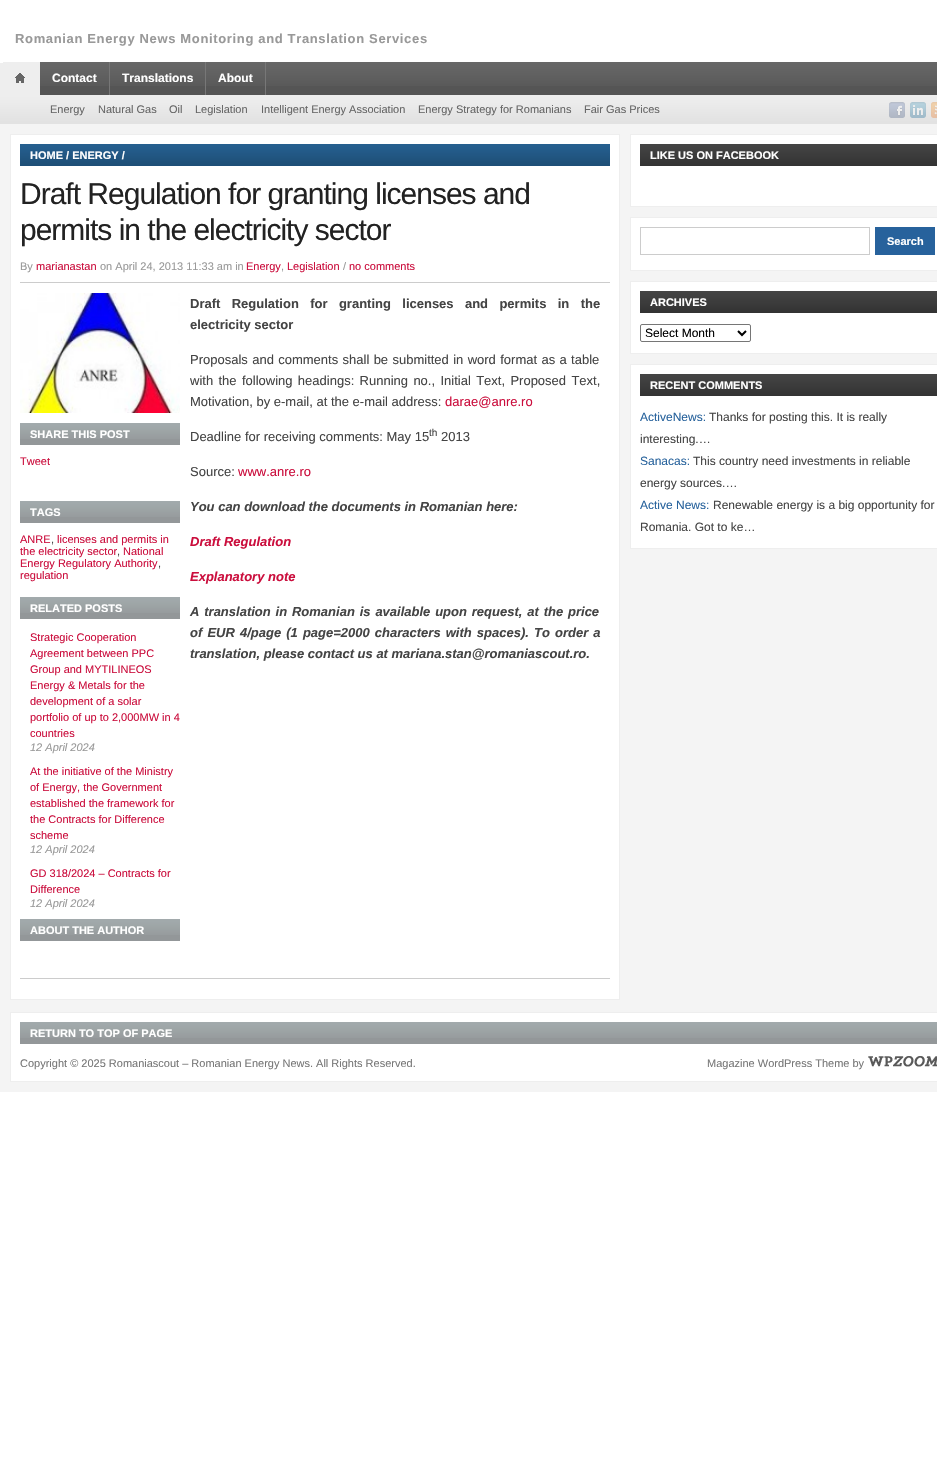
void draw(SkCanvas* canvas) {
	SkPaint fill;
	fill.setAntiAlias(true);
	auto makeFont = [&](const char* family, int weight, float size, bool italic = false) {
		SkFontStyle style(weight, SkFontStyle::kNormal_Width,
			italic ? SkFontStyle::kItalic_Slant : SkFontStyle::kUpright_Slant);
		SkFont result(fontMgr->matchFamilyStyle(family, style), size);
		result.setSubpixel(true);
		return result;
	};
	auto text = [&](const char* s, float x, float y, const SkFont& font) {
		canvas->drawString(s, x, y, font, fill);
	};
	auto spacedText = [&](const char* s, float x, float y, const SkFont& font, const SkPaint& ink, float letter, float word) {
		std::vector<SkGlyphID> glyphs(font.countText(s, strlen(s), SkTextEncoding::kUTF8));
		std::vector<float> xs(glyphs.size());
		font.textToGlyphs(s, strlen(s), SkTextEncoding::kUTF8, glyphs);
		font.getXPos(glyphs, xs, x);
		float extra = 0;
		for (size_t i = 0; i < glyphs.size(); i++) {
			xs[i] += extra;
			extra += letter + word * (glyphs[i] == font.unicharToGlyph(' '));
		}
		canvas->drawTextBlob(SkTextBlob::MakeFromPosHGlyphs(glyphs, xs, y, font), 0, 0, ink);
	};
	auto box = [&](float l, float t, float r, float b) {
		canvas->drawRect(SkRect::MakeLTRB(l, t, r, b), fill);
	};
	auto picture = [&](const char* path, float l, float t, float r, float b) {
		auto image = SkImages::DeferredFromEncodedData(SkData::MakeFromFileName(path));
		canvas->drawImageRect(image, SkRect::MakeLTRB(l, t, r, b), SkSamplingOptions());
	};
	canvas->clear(0xFFFFFFFF);
	fill.setColor(0xFFEEEEEE);
	box(0, 63, 3, 95);
	fill.setColor(0xFF555555);
	box(40, 86, 937, 95);
	picture("image0.png", 40, 62, 937, 86);
	picture("image1.png", 3, 62, 40, 95);
	fill.setColor(0xFF777777);
	box(109, 62, 110, 95);
	box(205, 62, 206, 95);
	box(265, 62, 266, 95);
	picture("image2.png", 0, 95, 937, 124);
	picture("image3.png", 889, 102, 905, 118);
	picture("image4.png", 910, 102, 926, 118);
	picture("image5.png", 931, 102, 937, 118);
	fill.setColor(0xFFF4F4F4);
	box(0, 124, 937, 1092);
	fill.setColor(0xFFFFFFFF);
	canvas->drawRect(SkRect::MakeLTRB(10.5f, 134.5f, 619.5f, 999.5f), fill);
	fill.setStyle(SkPaint::kStroke_Style);
	fill.setStrokeWidth(1);
	fill.setColor(0xFFEEEEEE);
	canvas->drawRect(SkRect::MakeLTRB(10.5f, 134.5f, 619.5f, 999.5f), fill);
	picture("image6.png", 20, 144, 610, 166);
	fill.setStyle(SkPaint::kFill_Style);
	fill.setColor(0xFFCCCCCC);
	box(20, 282, 610, 283);
	picture("image7.png", 20, 293, 180, 413);
	fill.setColor(0xFF939799);
	box(20, 439, 180, 445);
	picture("image8.png", 20, 423, 180, 439);
	box(20, 517, 180, 523);
	picture("image8.png", 20, 501, 180, 517);
	box(20, 613, 180, 619);
	picture("image8.png", 20, 597, 180, 613);
	box(20, 935, 180, 941);
	picture("image8.png", 20, 919, 180, 935);
	fill.setColor(0xFFCCCCCC);
	box(20, 978, 610, 979);
	fill.setColor(0xFFFFFFFF);
	canvas->drawRect(SkRect::MakeLTRB(630.5f, 134.5f, 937.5f, 206.5f), fill);
	fill.setStyle(SkPaint::kStroke_Style);
	fill.setColor(0xFFEEEEEE);
	canvas->drawRect(SkRect::MakeLTRB(630.5f, 134.5f, 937.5f, 206.5f), fill);
	picture("image9.png", 640, 144, 937, 166);
	fill.setStyle(SkPaint::kFill_Style);
	fill.setColor(0xFFFFFFFF);
	canvas->drawRect(SkRect::MakeLTRB(630.5f, 217.5f, 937.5f, 270.5f), fill);
	fill.setStyle(SkPaint::kStroke_Style);
	fill.setColor(0xFFEEEEEE);
	canvas->drawRect(SkRect::MakeLTRB(630.5f, 217.5f, 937.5f, 270.5f), fill);
	fill.setColor(0xFFCCCCCC);
	canvas->drawRect(SkRect::MakeLTRB(640.5f, 227.5f, 869.5f, 254.5f), fill);
	fill.setStyle(SkPaint::kFill_Style);
	fill.setColor(0xFF27629C);
	box(875, 227, 935, 255);
	fill.setColor(0xFFFFFFFF);
	canvas->drawRect(SkRect::MakeLTRB(630.5f, 281.5f, 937.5f, 353.5f), fill);
	fill.setStyle(SkPaint::kStroke_Style);
	fill.setColor(0xFFEEEEEE);
	canvas->drawRect(SkRect::MakeLTRB(630.5f, 281.5f, 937.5f, 353.5f), fill);
	picture("image9.png", 640, 291, 937, 313);
	fill.setColor(0xFF767676);
	canvas->drawRoundRect(SkRect::MakeLTRB(640.5f, 324.5f, 750.5f, 341.5f), 1.5f, 1.5f, fill);
	fill.setStrokeWidth(2);
	fill.setColor(0xFF000000);
	canvas->drawPath(SkPathBuilder().moveTo(738, 331).lineTo(742, 335).lineTo(746, 331).detach(), fill);
	fill.setStyle(SkPaint::kFill_Style);
	fill.setColor(0xFFFFFFFF);
	canvas->drawRect(SkRect::MakeLTRB(630.5f, 364.5f, 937.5f, 548.5f), fill);
	fill.setStyle(SkPaint::kStroke_Style);
	fill.setStrokeWidth(1);
	fill.setColor(0xFFEEEEEE);
	canvas->drawRect(SkRect::MakeLTRB(630.5f, 364.5f, 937.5f, 548.5f), fill);
	picture("image9.png", 640, 374, 937, 396);
	fill.setStyle(SkPaint::kFill_Style);
	fill.setColor(0xFFFFFFFF);
	canvas->drawRect(SkRect::MakeLTRB(10.5f, 1012.5f, 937.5f, 1081.5f), fill);
	fill.setStyle(SkPaint::kStroke_Style);
	fill.setColor(0xFFEEEEEE);
	canvas->drawRect(SkRect::MakeLTRB(10.5f, 1012.5f, 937.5f, 1081.5f), fill);
	fill.setStyle(SkPaint::kFill_Style);
	fill.setColor(0xFF939799);
	box(20, 1038, 937, 1044);
	picture("image10.png", 20, 1022, 937, 1038);
	picture("image11.png", 868, 1056, 937, 1067);
	auto font1 = makeFont("Liberation Sans", 700, 13);
	fill.setColor(0xFF999999);
	spacedText("Romanian Energy News Monitoring and Translation Services", 15, 43, font1, fill, 0.65f, 0);
	auto font2 = makeFont("Liberation Sans", 700, 12);
	fill.setColor(0xFFFFFFFF);
	text("Contact", 52, 82, font2);
	text("Translations", 122, 82, font2);
	text("About", 218, 82, font2);
	auto font3 = makeFont("Liberation Sans", 400, 11);
	fill.setColor(0xFF666666);
	text("Energy", 50, 113, font3);
	text("Natural Gas", 98, 113, font3);
	text("Oil", 169, 113, font3);
	text("Legislation", 195, 113, font3);
	text("Intelligent Energy Association", 261, 113, font3);
	text("Energy Strategy for Romanians", 418, 113, font3);
	text("Fair Gas Prices", 584, 113, font3);
	auto font4 = makeFont("Liberation Sans", 700, 11);
	fill.setColor(0xFFFFFFFF);
	text("HOME / ENERGY /", 30, 159, font4);
	auto font5 = makeFont("Liberation Sans", 400, 30);
	fill.setColor(0xFF222222);
	spacedText("Draft Regulation for granting licenses and", 20, 204, font5, fill, -1, 0);
	spacedText("permits in the electricity sector", 20, 240, font5, fill, -1, 0);
	fill.setColor(0xFF999999);
	text("By", 20, 270, font3);
	fill.setColor(0xFFCB0E3D);
	text("marianastan", 36, 270, font3);
	fill.setColor(0xFF999999);
	text("on April 24, 2013 11:33 am in", 100, 270, font3);
	fill.setColor(0xFFCB0E3D);
	text("Energy", 246, 270, font3);
	fill.setColor(0xFF999999);
	text(",", 281, 270, font3);
	fill.setColor(0xFFCB0E3D);
	text("Legislation", 287, 270, font3);
	fill.setColor(0xFF999999);
	text("/", 343, 270, font3);
	fill.setColor(0xFFCB0E3D);
	text("no comments", 349, 270, font3);
	fill.setColor(0xFFFFFFFF);
	text("SHARE THIS POST", 30, 438, font4);
	fill.setColor(0xFFCB0E3D);
	text("Tweet", 20, 465, font3);
	fill.setColor(0xFFFFFFFF);
	text("TAGS", 30, 516, font4);
	fill.setColor(0xFFCB0E3D);
	text("ANRE", 20, 543, font3);
	fill.setColor(0xFF444444);
	text(",", 51, 543, font3);
	fill.setColor(0xFFCB0E3D);
	text("licenses and permits in", 57, 543, font3);
	text("the electricity sector", 20, 555, font3);
	fill.setColor(0xFF444444);
	text(",", 117, 555, font3);
	fill.setColor(0xFFCB0E3D);
	text("National", 123, 555, font3);
	text("Energy Regulatory Authority", 20, 567, font3);
	fill.setColor(0xFF444444);
	text(",", 158, 567, font3);
	fill.setColor(0xFFCB0E3D);
	text("regulation", 20, 579, font3);
	fill.setColor(0xFFFFFFFF);
	text("RELATED POSTS", 30, 612, font4);
	fill.setColor(0xFFCB0E3D);
	text("Strategic Cooperation", 30, 641, font3);
	text("Agreement between PPC", 30, 657, font3);
	text("Group and MYTILINEOS", 30, 673, font3);
	text("Energy & Metals for the", 30, 689, font3);
	text("development of a solar", 30, 705, font3);
	text("portfolio of up to 2,000MW in 4", 30, 721, font3);
	text("countries", 30, 737, font3);
	auto font6 = makeFont("Liberation Sans", 400, 11, true);
	fill.setColor(0xFF999999);
	text("12 April 2024", 30, 751, font6);
	fill.setColor(0xFFCB0E3D);
	text("At the initiative of the Ministry", 30, 775, font3);
	text("of Energy, the Government", 30, 791, font3);
	text("established the framework for", 30, 807, font3);
	text("the Contracts for Difference", 30, 823, font3);
	text("scheme", 30, 839, font3);
	fill.setColor(0xFF999999);
	text("12 April 2024", 30, 853, font6);
	fill.setColor(0xFFCB0E3D);
	text("GD 318/2024 – Contracts for", 30, 877, font3);
	text("Difference", 30, 893, font3);
	fill.setColor(0xFF999999);
	text("12 April 2024", 30, 907, font6);
	fill.setColor(0xFFFFFFFF);
	text("ABOUT THE AUTHOR", 30, 934, font4);
	fill.setColor(0xFF444444);
	spacedText("Draft Regulation for granting licenses and permits in the", 190, 308, font1, fill, 0, 7.75f);
	text("electricity sector", 190, 329, font1);
	auto font7 = makeFont("Liberation Sans", 400, 13);
	spacedText("Proposals and comments shall be submitted in word format as a table", 190, 364, font7, fill, 0, 0.75f);
	spacedText("with the following headings: Running no., Initial Text, Proposed Text,", 190, 385, font7, fill, 0, 1.75f);
	text("Motivation, by e-mail, at the e-mail address:", 190, 406, font7);
	fill.setColor(0xFFCB0E3D);
	text("darae@anre.ro", 445, 406, font7);
	fill.setColor(0xFF444444);
	text("Deadline for receiving comments: May 15", 190, 441, font7);
	auto font8 = makeFont("Liberation Sans", 400, 10);
	text("th", 429, 436, font8);
	text("2013", 441, 441, font7);
	text("Source:", 190, 476, font7);
	fill.setColor(0xFFCB0E3D);
	text("www.anre.ro", 238, 476, font7);
	auto font9 = makeFont("Liberation Sans", 700, 13, true);
	fill.setColor(0xFF444444);
	text("You can download the documents in Romanian here:", 190, 511, font9);
	fill.setColor(0xFFCB0E3D);
	text("Draft Regulation", 190, 546, font9);
	text("Explanatory note", 190, 581, font9);
	fill.setColor(0xFF444444);
	spacedText("A translation in Romanian is available upon request, at the price", 190, 616, font9, fill, 0, 1.25f);
	spacedText("of EUR 4/page (1 page=2000 characters with spaces). To order a", 190, 637, font9, fill, 0, 1.5f);
	text("translation, please contact us at mariana.stan@romaniascout.ro.", 190, 658, font9);
	fill.setColor(0xFFFFFFFF);
	text("LIKE US ON FACEBOOK", 650, 159, font4);
	text("Search", 887, 245, font4);
	text("ARCHIVES", 650, 306, font4);
	auto font10 = makeFont("Liberation Sans", 400, 12);
	fill.setColor(0xFF000000);
	text("Select Month", 645, 337, font10);
	fill.setColor(0xFFFFFFFF);
	text("RECENT COMMENTS", 650, 389, font4);
	fill.setColor(0xFF27629C);
	text("ActiveNews:", 640, 421, font10);
	fill.setColor(0xFF444444);
	text("Thanks for posting this. It is really", 709, 421, font10);
	text("interesting.…", 640, 443, font10);
	fill.setColor(0xFF27629C);
	text("Sanacas:", 640, 465, font10);
	fill.setColor(0xFF444444);
	text("This country need investments in reliable", 693, 465, font10);
	text("energy sources.…", 640, 487, font10);
	fill.setColor(0xFF27629C);
	text("Active News:", 640, 509, font10);
	fill.setColor(0xFF444444);
	text("Renewable energy is a big opportunity for", 713, 509, font10);
	text("Romania. Got to ke…", 640, 531, font10);
	fill.setColor(0xFFFFFFFF);
	text("RETURN TO TOP OF PAGE", 30, 1037, font4);
	fill.setColor(0xFF777777);
	text("Copyright © 2025 Romaniascout – Romanian Energy News. All Rights Reserved.", 20, 1067, font3);
	text("Magazine WordPress Theme by", 707, 1067, font3);
}
